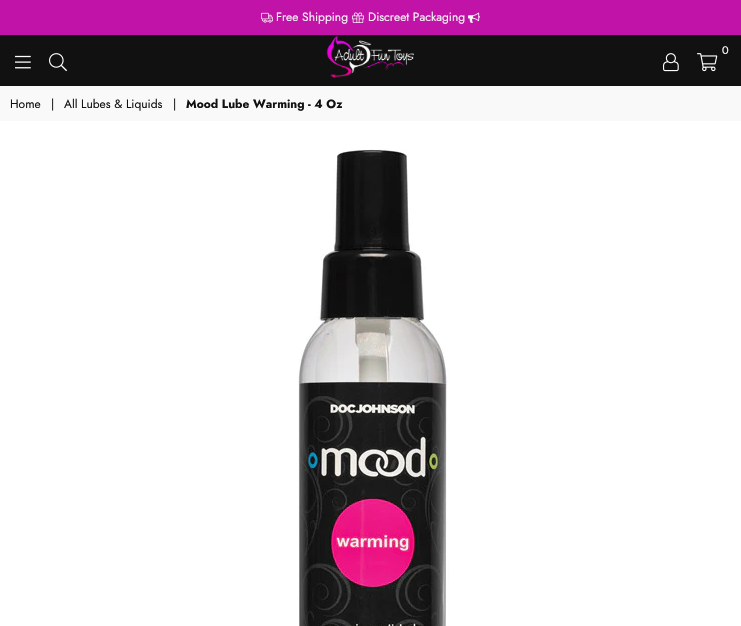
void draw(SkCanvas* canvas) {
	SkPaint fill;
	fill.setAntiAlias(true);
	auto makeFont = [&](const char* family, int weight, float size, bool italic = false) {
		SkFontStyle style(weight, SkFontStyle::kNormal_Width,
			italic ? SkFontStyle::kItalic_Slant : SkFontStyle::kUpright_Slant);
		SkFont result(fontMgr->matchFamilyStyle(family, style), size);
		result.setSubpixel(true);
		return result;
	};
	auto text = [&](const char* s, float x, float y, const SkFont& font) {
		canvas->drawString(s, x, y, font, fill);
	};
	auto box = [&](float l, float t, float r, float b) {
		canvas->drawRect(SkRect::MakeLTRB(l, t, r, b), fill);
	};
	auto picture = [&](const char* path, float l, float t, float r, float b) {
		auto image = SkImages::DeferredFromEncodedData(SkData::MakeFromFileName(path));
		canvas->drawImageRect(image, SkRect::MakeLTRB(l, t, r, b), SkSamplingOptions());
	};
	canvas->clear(0xFFFFFFFF);
	fill.setColor(0xFFC113A7);
	box(0, 0, 741, 35);
	picture("image0.png", 261, 12, 273, 23);
	picture("image1.png", 352, 12, 364, 23);
	picture("image2.png", 468, 12, 480, 23);
	fill.setColor(0xFF111111);
	box(0, 35, 741, 86);
	picture("image3.png", 326, 35, 414, 78);
	picture("image4.png", 697, 53, 718, 72);
	picture("image5.png", 663, 53, 679, 72);
	picture("image6.png", 15, 55, 31, 69);
	picture("image7.png", 49, 53, 67, 72);
	fill.setColor(0xFFF9F9F9);
	box(0, 86, 741, 121);
	picture("image8.png", 298, 149, 449, 626);
	auto font1 = makeFont("Jost", 400, 12);
	fill.setColor(0xFFF5F5F5);
	text("Free Shipping", 276, 21, font1);
	text("Discreet Packaging", 368, 21, font1);
	auto font2 = makeFont("Jost", 400, 11);
	fill.setColor(0xFFFFFFFF);
	text("0", 722, 54, font2);
	fill.setColor(0xFF111111);
	text("Home", 10, 108, font1);
	text("|", 51, 108, font1);
	text("All Lubes & Liquids", 64, 108, font1);
	text("|", 173, 108, font1);
	auto font3 = makeFont("Jost", 700, 12);
	text("Mood Lube Warming - 4 Oz", 186, 108, font3);
}
